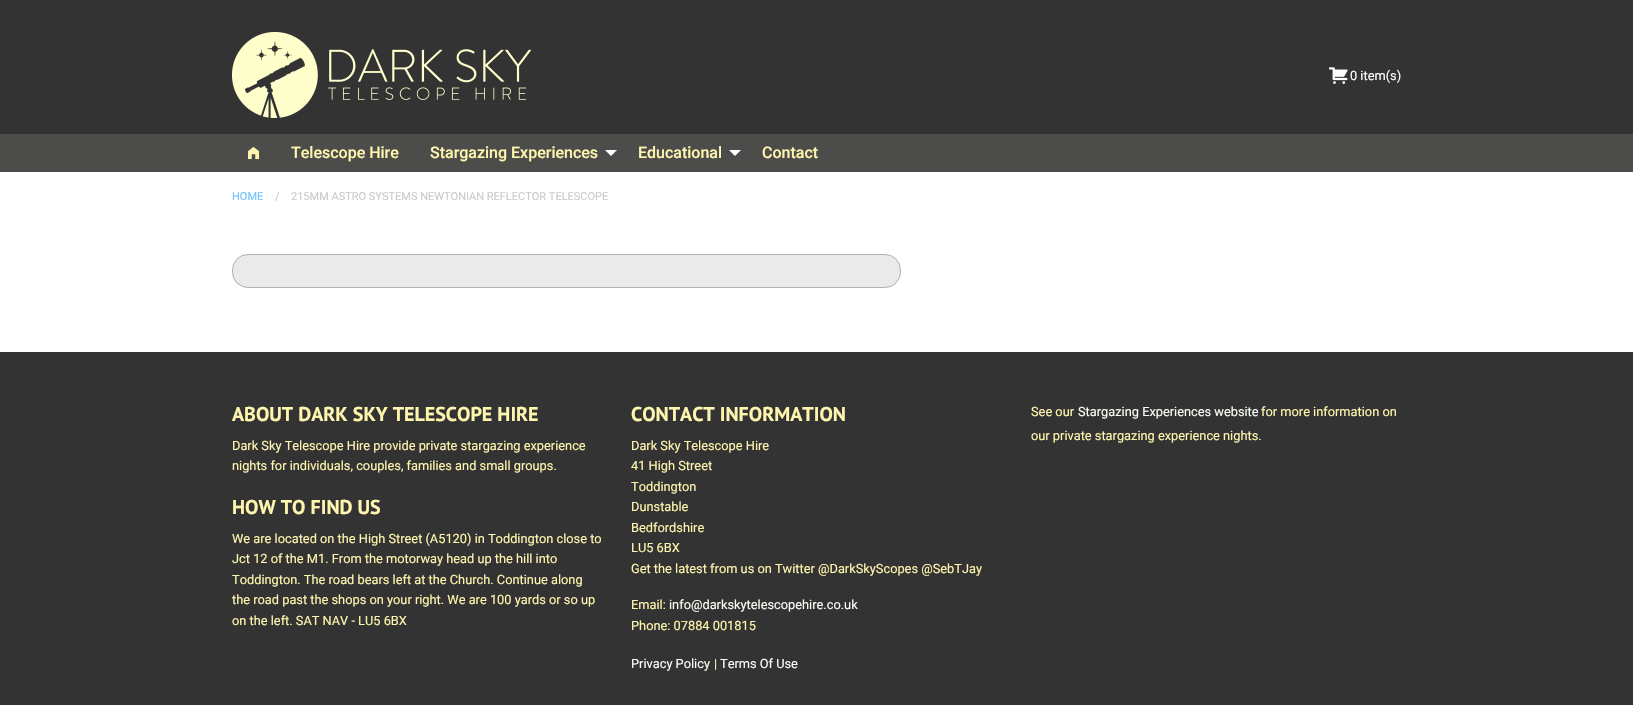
void draw(SkCanvas* canvas) {
	SkPaint fill;
	fill.setAntiAlias(true);
	auto makeFont = [&](const char* family, int weight, float size, bool italic = false) {
		SkFontStyle style(weight, SkFontStyle::kNormal_Width,
			italic ? SkFontStyle::kItalic_Slant : SkFontStyle::kUpright_Slant);
		SkFont result(fontMgr->matchFamilyStyle(family, style), size);
		result.setSubpixel(true);
		return result;
	};
	auto text = [&](const char* s, float x, float y, const SkFont& font) {
		canvas->drawString(s, x, y, font, fill);
	};
	auto box = [&](float l, float t, float r, float b) {
		canvas->drawRect(SkRect::MakeLTRB(l, t, r, b), fill);
	};
	auto roundBox = [&](float l, float t, float r, float b, float radius) {
		canvas->drawRoundRect(SkRect::MakeLTRB(l, t, r, b), radius, radius, fill);
	};
	auto picture = [&](const char* path, float l, float t, float r, float b) {
		auto image = SkImages::DeferredFromEncodedData(SkData::MakeFromFileName(path));
		canvas->drawImageRect(image, SkRect::MakeLTRB(l, t, r, b), SkSamplingOptions());
	};
	canvas->clear(0xFFFFFFFF);
	fill.setColor(0xFF333333);
	box(0, 0, 1633, 134);
	picture("image0.png", 232, 32, 532, 118);
	picture("image1.png", 1329, 67, 1348, 84);
	fill.setColor(0xFF4C4C4A);
	box(0, 134, 1633, 172);
	picture("image2.png", 248, 147, 260, 160);
	fill.setColor(0xFFFFFFFF);
	canvas->drawPath(SkPathBuilder().moveTo(605, 150).lineTo(617, 150).lineTo(611, 156).close().detach(), fill);
	canvas->drawPath(SkPathBuilder().moveTo(729, 150).lineTo(741, 150).lineTo(735, 156).close().detach(), fill);
	fill.setColor(0xFFEAEAEA);
	roundBox(232, 254, 901, 288, 16);
	fill.setStyle(SkPaint::kStroke_Style);
	fill.setStrokeWidth(1);
	fill.setColor(0x400A0A0A);
	canvas->drawRoundRect(SkRect::MakeLTRB(232.5f, 254.5f, 900.5f, 287.5f), 15.5f, 15.5f, fill);
	fill.setStyle(SkPaint::kFill_Style);
	fill.setColor(0xFF333333);
	box(0, 352, 1633, 705);
	auto font1 = makeFont("Roboto", 400, 12.8f);
	fill.setColor(0xFFFFFFFF);
	text("0 item(s)", 1350, 80, font1);
	auto font2 = makeFont("Roboto", 500, 16);
	fill.setColor(0xFFFEF6AE);
	text("Telescope Hire", 291, 158, font2);
	text("Stargazing Experiences", 430, 158, font2);
	text("Educational", 638, 158, font2);
	text("Contact", 762, 158, font2);
	auto font3 = makeFont("Roboto", 400, 11);
	fill.setColor(0xFF6CC3FE);
	text("HOME", 232, 200, font3);
	fill.setColor(0xFFCACACA);
	text("/", 275, 200, font3);
	text("215MM ASTRO SYSTEMS NEWTONIAN REFLECTOR TELESCOPE", 291, 200, font3);
	auto font4 = makeFont("PT Sans", 700, 20);
	fill.setColor(0xFFFEF6AE);
	text("ABOUT DARK SKY TELESCOPE HIRE", 232, 421, font4);
	text("Dark Sky Telescope Hire provide private stargazing experience", 232, 450, font1);
	text("nights for individuals, couples, families and small groups.", 232, 470, font1);
	text("HOW TO FIND US", 232, 514, font4);
	text("We are located on the High Street (A5120) in Toddington close to", 232, 543, font1);
	text("Jct 12 of the M1. From the motorway head up the hill into", 232, 563, font1);
	text("Toddington. The road bears left at the Church. Continue along", 232, 584, font1);
	text("the road past the shops on your right. We are 100 yards or so up", 232, 604, font1);
	text("on the left. SAT NAV - LU5 6BX", 232, 625, font1);
	text("CONTACT INFORMATION", 631, 421, font4);
	text("Dark Sky Telescope Hire", 631, 450, font1);
	text("41 High Street", 631, 470, font1);
	text("Toddington", 631, 491, font1);
	text("Dunstable", 631, 511, font1);
	text("Bedfordshire", 631, 532, font1);
	text("LU5 6BX", 631, 552, font1);
	text("Get the latest from us on Twitter @DarkSkyScopes @SebTJay", 631, 573, font1);
	text("Email:", 631, 609, font1);
	fill.setColor(0xFFFBFEF7);
	text("info@darkskytelescopehire.co.uk", 669, 609, font1);
	fill.setColor(0xFFFEF6AE);
	text("Phone: 07884 001815", 631, 630, font1);
	fill.setColor(0xFFFBFEF7);
	text("Privacy Policy", 631, 668, font1);
	fill.setColor(0xFFFEF6AE);
	text("|", 714, 668, font1);
	fill.setColor(0xFFFBFEF7);
	text("Terms Of Use", 720, 668, font1);
	fill.setColor(0xFFFEF6AE);
	text("See our", 1031, 416, font1);
	fill.setColor(0xFFFBFEF7);
	text("Stargazing Experiences website", 1078, 416, font1);
	fill.setColor(0xFFFEF6AE);
	text("for more information on", 1261, 416, font1);
	text("our private stargazing experience nights.", 1031, 440, font1);
}
